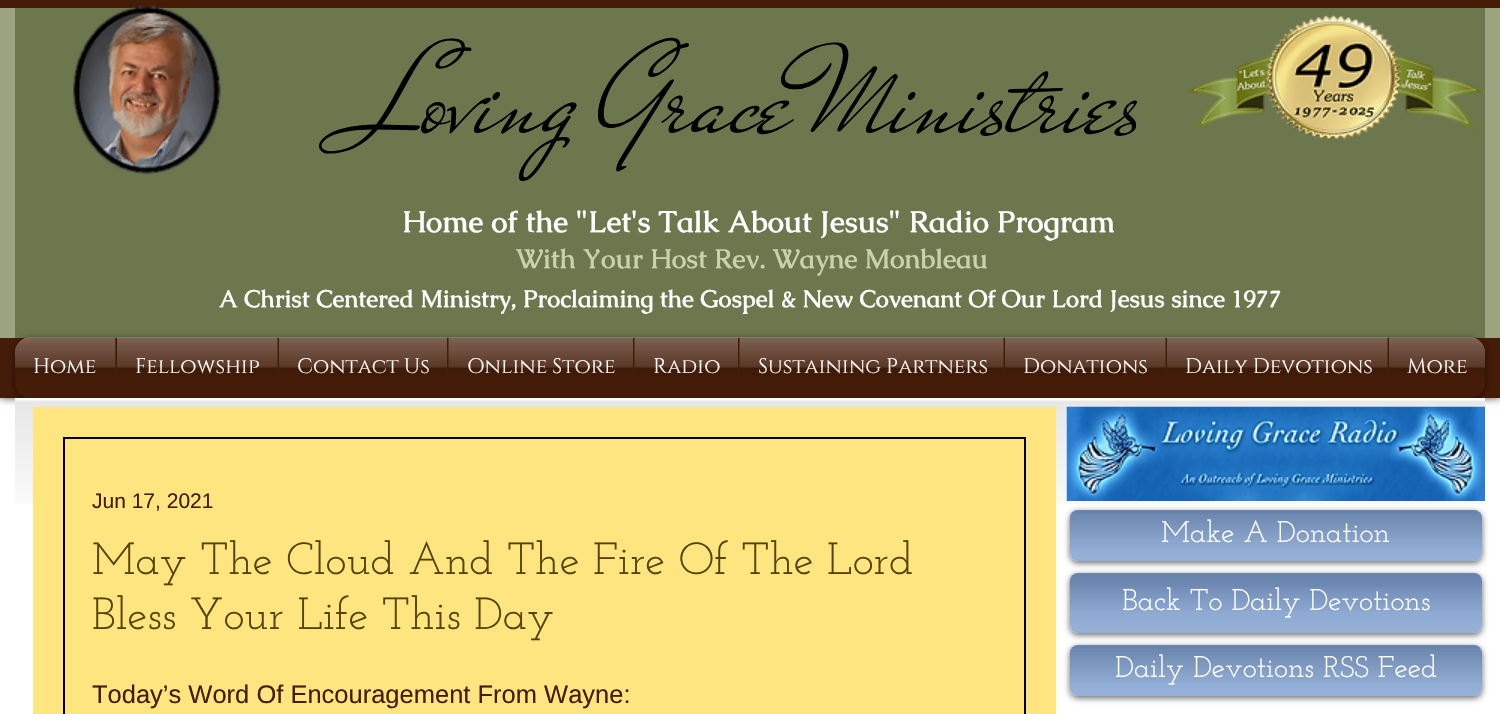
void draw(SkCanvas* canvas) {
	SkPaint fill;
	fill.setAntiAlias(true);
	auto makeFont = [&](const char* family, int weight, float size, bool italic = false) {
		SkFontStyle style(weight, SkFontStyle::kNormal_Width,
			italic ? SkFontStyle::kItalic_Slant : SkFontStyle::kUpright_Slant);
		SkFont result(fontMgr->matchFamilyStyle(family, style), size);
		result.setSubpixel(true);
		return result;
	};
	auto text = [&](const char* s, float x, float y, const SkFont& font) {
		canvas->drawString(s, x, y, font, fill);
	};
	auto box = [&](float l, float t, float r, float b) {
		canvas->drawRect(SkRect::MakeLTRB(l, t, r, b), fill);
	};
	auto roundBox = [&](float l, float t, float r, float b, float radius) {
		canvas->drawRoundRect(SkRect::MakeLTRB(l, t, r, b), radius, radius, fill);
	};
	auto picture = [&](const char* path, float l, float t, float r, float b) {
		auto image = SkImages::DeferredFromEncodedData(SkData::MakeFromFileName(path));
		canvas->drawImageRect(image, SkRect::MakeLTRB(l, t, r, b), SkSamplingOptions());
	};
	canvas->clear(0xFFFFFFFF);
	fill.setColor(0xB3000000);
	fill.setMaskFilter(SkMaskFilter::MakeBlur(kNormal_SkBlurStyle, 4));
	canvas->drawRect(SkRect::MakeLTRB(0, 0, 1500, 398), fill);
	fill.setMaskFilter(nullptr);
	fill.setColor(0xFF9BA47E);
	box(0, 8, 1500, 338);
	fill.setColor(0xFF441C08);
	box(0, 0, 1500, 8);
	fill.setColor(0xFF6D774D);
	box(15, 8, 1485, 338);
	picture("image0.png", 73, 5, 221, 175);
	picture("image1.png", 1187, 14, 1483, 141);
	fill.setColor(0xFF441C08);
	box(0, 338, 1500, 398);
	fill.setColor(0x99000000);
	fill.setMaskFilter(SkMaskFilter::MakeBlur(kNormal_SkBlurStyle, 3));
	canvas->drawRoundRect(SkRect::MakeLTRB(15, 339, 1485, 399), 15, 15, fill);
	fill.setMaskFilter(nullptr);
	picture("image2.png", 15, 337, 1485, 353);
	fill.setColor(0xFF441C08);
	canvas->drawPath(SkPathBuilder().moveTo(30, 338).lineTo(116, 338).lineTo(116, 398).lineTo(30, 398).cubicTo(21.5f, 398, 15, 391.5f, 15, 383).lineTo(15, 353).cubicTo(15, 344.5f, 21.5f, 338, 30, 338).close().detach(), fill);
	box(116, 338, 1388, 398);
	canvas->drawPath(SkPathBuilder().moveTo(1388, 338).lineTo(1470, 338).cubicTo(1478.5f, 338, 1485, 344.5f, 1485, 353).lineTo(1485, 383).cubicTo(1485, 391.5f, 1478.5f, 398, 1470, 398).lineTo(1388, 398).close().detach(), fill);
	fill.setColor(0xFFFFFFFF);
	box(15, 398, 1485, 407);
	picture("image12.png", 15, 400, 1485, 504);
	picture("image13.png", 1066, 406, 1485, 501);
	fill.setColor(0xFFFFE57F);
	box(33, 407, 1056, 714);
	fill.setStyle(SkPaint::kStroke_Style);
	fill.setStrokeWidth(2);
	fill.setColor(0xFF000000);
	canvas->drawRect(SkRect::MakeLTRB(64, 438, 1025, 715), fill);
	canvas->save();
	canvas->clipPath(SkPathBuilder(SkPathFillType::kEvenOdd).moveTo(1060, 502).lineTo(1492, 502).lineTo(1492, 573).lineTo(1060, 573).close().moveTo(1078, 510).lineTo(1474, 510).cubicTo(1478.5f, 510, 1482, 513.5f, 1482, 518).lineTo(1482, 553).cubicTo(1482, 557.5f, 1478.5f, 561, 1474, 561).lineTo(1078, 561).cubicTo(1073.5f, 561, 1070, 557.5f, 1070, 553).lineTo(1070, 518).cubicTo(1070, 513.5f, 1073.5f, 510, 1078, 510).close().detach(), true);
	fill.setStyle(SkPaint::kFill_Style);
	fill.setColor(0x99000000);
	fill.setMaskFilter(SkMaskFilter::MakeBlur(kNormal_SkBlurStyle, 3));
	canvas->drawRoundRect(SkRect::MakeLTRB(1070, 512, 1482, 563), 8, 8, fill);
	fill.setMaskFilter(nullptr);
	canvas->restore();
	fill.setColor(0xB34673B8);
	roundBox(1070, 510, 1482, 561, 8);
	picture("image14.png", 1069, 510, 1482, 548);
	picture("image15.png", 1070, 514, 1482, 561);
	canvas->save();
	canvas->clipPath(SkPathBuilder(SkPathFillType::kEvenOdd).moveTo(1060, 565).lineTo(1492, 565).lineTo(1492, 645).lineTo(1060, 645).close().moveTo(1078, 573).lineTo(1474, 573).cubicTo(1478.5f, 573, 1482, 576.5f, 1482, 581).lineTo(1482, 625).cubicTo(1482, 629.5f, 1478.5f, 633, 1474, 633).lineTo(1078, 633).cubicTo(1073.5f, 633, 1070, 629.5f, 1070, 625).lineTo(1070, 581).cubicTo(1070, 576.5f, 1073.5f, 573, 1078, 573).close().detach(), true);
	fill.setColor(0x99000000);
	fill.setMaskFilter(SkMaskFilter::MakeBlur(kNormal_SkBlurStyle, 3));
	canvas->drawRoundRect(SkRect::MakeLTRB(1070, 575, 1482, 635), 8, 8, fill);
	fill.setMaskFilter(nullptr);
	canvas->restore();
	fill.setColor(0xB34673B8);
	roundBox(1070, 573, 1482, 633, 8);
	picture("image14.png", 1069, 573, 1482, 611);
	picture("image16.png", 1070, 587, 1482, 633);
	canvas->save();
	canvas->clipPath(SkPathBuilder(SkPathFillType::kEvenOdd).moveTo(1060, 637).lineTo(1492, 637).lineTo(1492, 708).lineTo(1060, 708).close().moveTo(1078, 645).lineTo(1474, 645).cubicTo(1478.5f, 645, 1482, 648.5f, 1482, 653).lineTo(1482, 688).cubicTo(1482, 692.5f, 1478.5f, 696, 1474, 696).lineTo(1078, 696).cubicTo(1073.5f, 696, 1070, 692.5f, 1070, 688).lineTo(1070, 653).cubicTo(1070, 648.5f, 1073.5f, 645, 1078, 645).close().detach(), true);
	fill.setColor(0x99000000);
	fill.setMaskFilter(SkMaskFilter::MakeBlur(kNormal_SkBlurStyle, 3));
	canvas->drawRoundRect(SkRect::MakeLTRB(1070, 647, 1482, 698), 8, 8, fill);
	fill.setMaskFilter(nullptr);
	canvas->restore();
	fill.setColor(0xB34673B8);
	roundBox(1070, 645, 1482, 696, 8);
	picture("image14.png", 1069, 645, 1482, 683);
	picture("image15.png", 1070, 649, 1482, 696);
	auto font1 = makeFont("Mr De Haviland", 400, 127.5f);
	fill.setColor(0xFF000000);
	text("Loving Grace Ministries", 358, 131, font1);
	auto font2 = makeFont("Caudex", 700, 30);
	fill.setColor(0xFFFFFFFF);
	text("Home of the \"Let's Talk About Jesus\" Radio Program", 402, 232, font2);
	auto font3 = makeFont("Caudex", 700, 27);
	fill.setColor(0xFFC9D1AD);
	text("With Your Host Rev. Wayne Monbleau", 516, 268, font3);
	auto font4 = makeFont("Caudex", 700, 24);
	fill.setColor(0xFFFFFFFF);
	text("A Christ Centered Ministry, Proclaiming the Gospel & New Covenant Of Our Lord Jesus since 1977", 219, 307, font4);
	auto font5 = makeFont("Cinzel", 400, 21);
	text("Home", 33, 373, font5);
	picture("image3.png", 15, 337, 116, 376);
	text("Fellowship", 135, 373, font5);
	picture("image4.png", 117, 337, 278, 376);
	text("Contact Us", 297, 373, font5);
	picture("image5.png", 279, 337, 447, 376);
	text("Online Store", 467, 373, font5);
	picture("image6.png", 448, 337, 633, 376);
	text("Radio", 653, 373, font5);
	picture("image7.png", 634, 337, 738, 376);
	text("Sustaining Partners", 758, 373, font5);
	picture("image8.png", 739, 337, 1004, 376);
	text("Donations", 1023, 373, font5);
	picture("image9.png", 1005, 337, 1166, 376);
	text("Daily Devotions", 1185, 373, font5);
	picture("image10.png", 1167, 337, 1388, 376);
	text("More", 1407, 373, font5);
	picture("image11.png", 1389, 337, 1485, 376);
	auto font6 = makeFont("Liberation Sans", 400, 21);
	fill.setColor(0xFF441C08);
	text("Jun 17, 2021", 92, 508, font6);
	auto font7 = makeFont("Josefin Slab", 400, 45);
	fill.setColor(0xFF544300);
	text("May The Cloud And The Fire Of The Lord", 92, 574, font7);
	text("Bless Your Life This Day", 92, 629, font7);
	auto font8 = makeFont("Liberation Sans", 400, 25.5f);
	fill.setColor(0xFF441C08);
	text("Today’s Word Of Encouragement From Wayne:", 92, 703, font8);
	auto font9 = makeFont("Josefin Slab", 400, 30);
	fill.setColor(0xFFFFFFFF);
	text("Make A Donation", 1161, 542, font9);
	text("Back To Daily Devotions", 1122, 610, font9);
	text("Daily Devotions RSS Feed", 1115, 677, font9);
}
